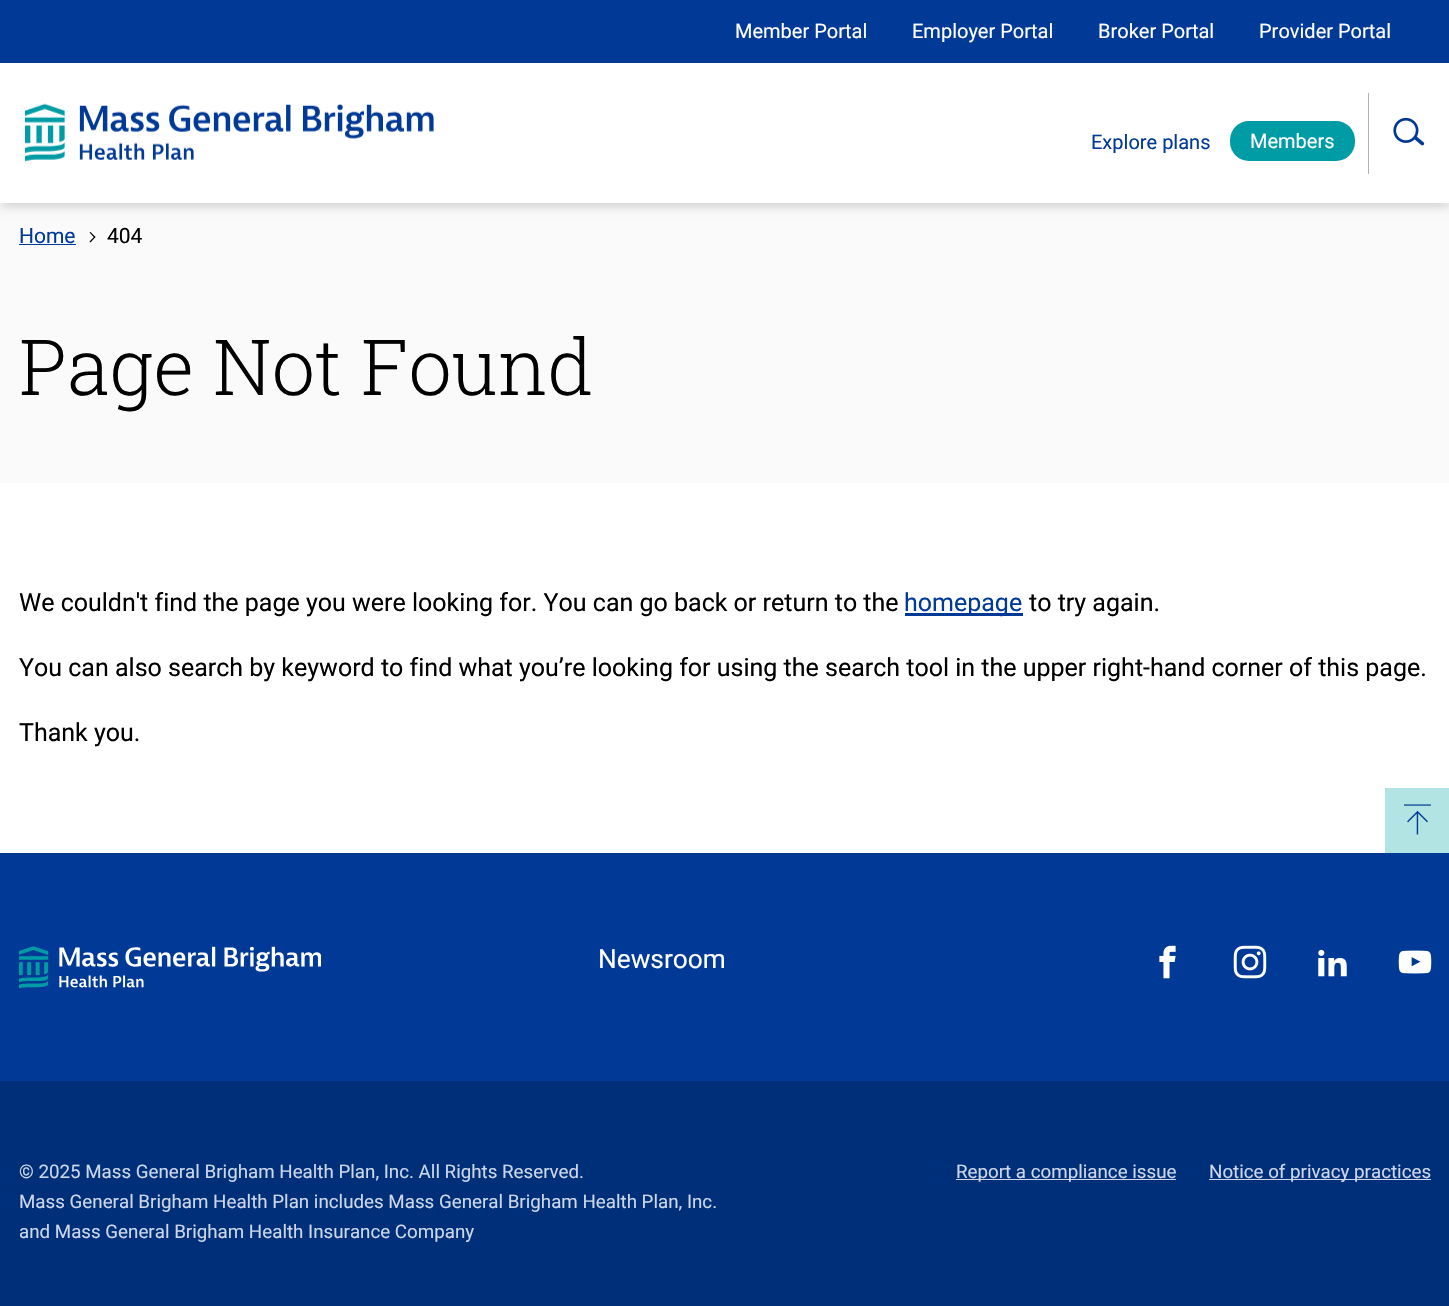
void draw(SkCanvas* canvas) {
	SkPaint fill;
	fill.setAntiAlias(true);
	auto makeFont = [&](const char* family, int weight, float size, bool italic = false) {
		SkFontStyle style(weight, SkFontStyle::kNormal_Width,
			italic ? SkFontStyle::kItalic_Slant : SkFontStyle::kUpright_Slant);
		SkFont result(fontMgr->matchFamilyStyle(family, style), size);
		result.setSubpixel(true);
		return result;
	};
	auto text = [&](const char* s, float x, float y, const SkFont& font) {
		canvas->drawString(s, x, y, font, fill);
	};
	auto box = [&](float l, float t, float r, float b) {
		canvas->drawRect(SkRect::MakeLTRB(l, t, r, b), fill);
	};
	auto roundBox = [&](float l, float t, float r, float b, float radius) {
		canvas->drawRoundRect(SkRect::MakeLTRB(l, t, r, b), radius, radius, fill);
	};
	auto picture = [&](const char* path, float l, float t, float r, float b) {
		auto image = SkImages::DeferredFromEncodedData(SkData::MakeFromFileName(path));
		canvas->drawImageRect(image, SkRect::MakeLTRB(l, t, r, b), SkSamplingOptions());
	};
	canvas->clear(0xFFFFFFFF);
	fill.setColor(0xFFFAFAFA);
	box(0, 205, 1449, 483);
	fill.setColor(0x4D000000);
	fill.setMaskFilter(SkMaskFilter::MakeBlur(kNormal_SkBlurStyle, 6));
	canvas->drawRect(SkRect::MakeLTRB(0, 0, 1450, 203), fill);
	fill.setMaskFilter(nullptr);
	fill.setColor(0xFFFFFFFF);
	box(0, 63, 1449, 203);
	fill.setColor(0xFF003A96);
	box(0, 0, 1449, 63);
	picture("image0.png", 25, 103, 434, 162);
	fill.setColor(0xFF009CA6);
	roundBox(1230, 121, 1355, 161, 19);
	fill.setColor(0xFFB3B3B3);
	box(1368, 93, 1369, 174);
	picture("image1.png", 1393, 117, 1425, 146);
	fill.setColor(0xFF003A96);
	box(19, 244, 76, 245);
	fill.setColor(0xFF000000);
	canvas->drawPath(SkPathBuilder().moveTo(89.5f, 232.5f).lineTo(90.5f, 232).lineTo(95.5f, 237).lineTo(94.5f, 238).close().detach(), fill);
	canvas->drawPath(SkPathBuilder().moveTo(89.5f, 241.5f).lineTo(94.5f, 236.5f).lineTo(95.5f, 237).lineTo(90.5f, 242.5f).close().detach(), fill);
	fill.setColor(0xFF003A96);
	box(905, 613, 1023, 616);
	fill.setColor(0xFFB1E4E3);
	box(1385, 788, 1449, 853);
	picture("image2.png", 1404, 804, 1431, 835);
	fill.setColor(0xFF003A96);
	box(0, 853, 1449, 1081);
	picture("image3.png", 19, 946, 321, 989);
	picture("image4.png", 1159, 945, 1176, 979);
	picture("image5.png", 1233, 945, 1267, 979);
	picture("image6.png", 1318, 949, 1347, 977);
	picture("image7.png", 1398, 950, 1432, 974);
	fill.setColor(0xFF002F7A);
	box(0, 1081, 1449, 1306);
	fill.setColor(0xFFCCD7EA);
	box(956, 1179, 1176, 1180);
	box(1209, 1179, 1431, 1180);
	auto font1 = makeFont("Roboto", 400, 20);
	fill.setColor(0xFFFFFFFF);
	text("Member Portal", 735, 38, font1);
	text("Employer Portal", 912, 38, font1);
	text("Broker Portal", 1098, 38, font1);
	text("Provider Portal", 1259, 38, font1);
	fill.setColor(0xFF003A96);
	text("Explore plans", 1091, 149, font1);
	fill.setColor(0xFFFFFFFF);
	text("Members", 1250, 148, font1);
	auto font2 = makeFont("Roboto", 400, 21);
	fill.setColor(0xFF003A96);
	text("Home", 19, 243, font2);
	fill.setColor(0xFF000000);
	text("404", 107, 243, font2);
	auto font3 = makeFont("Roboto Slab", 300, 77.5f);
	text("Page Not Found", 19, 395, font3);
	auto font4 = makeFont("Roboto", 400, 25);
	text("We couldn't find the page you were looking for. You can go back or return to the", 19, 611, font4);
	fill.setColor(0xFF003A96);
	text("homepage", 904, 611, font4);
	fill.setColor(0xFF000000);
	text("to try again.", 1029, 611, font4);
	text("You can also search by keyword to find what you’re looking for using the search tool in the upper right-hand corner of this page.", 19, 676, font4);
	text("Thank you.", 19, 741, font4);
	auto font5 = makeFont("Roboto", 400, 26.25f);
	fill.setColor(0xFFFFFFFF);
	text("Newsroom", 598, 968, font5);
	auto font6 = makeFont("Roboto", 400, 18.75f);
	fill.setColor(0xFFCCD7EA);
	text("© 2025 Mass General Brigham Health Plan, Inc. All Rights Reserved.", 19, 1178, font6);
	text("Mass General Brigham Health Plan includes Mass General Brigham Health Plan, Inc.", 19, 1208, font6);
	text("and Mass General Brigham Health Insurance Company", 19, 1238, font6);
	text("Report a compliance issue", 956, 1178, font6);
	text("Notice of privacy practices", 1209, 1178, font6);
}
